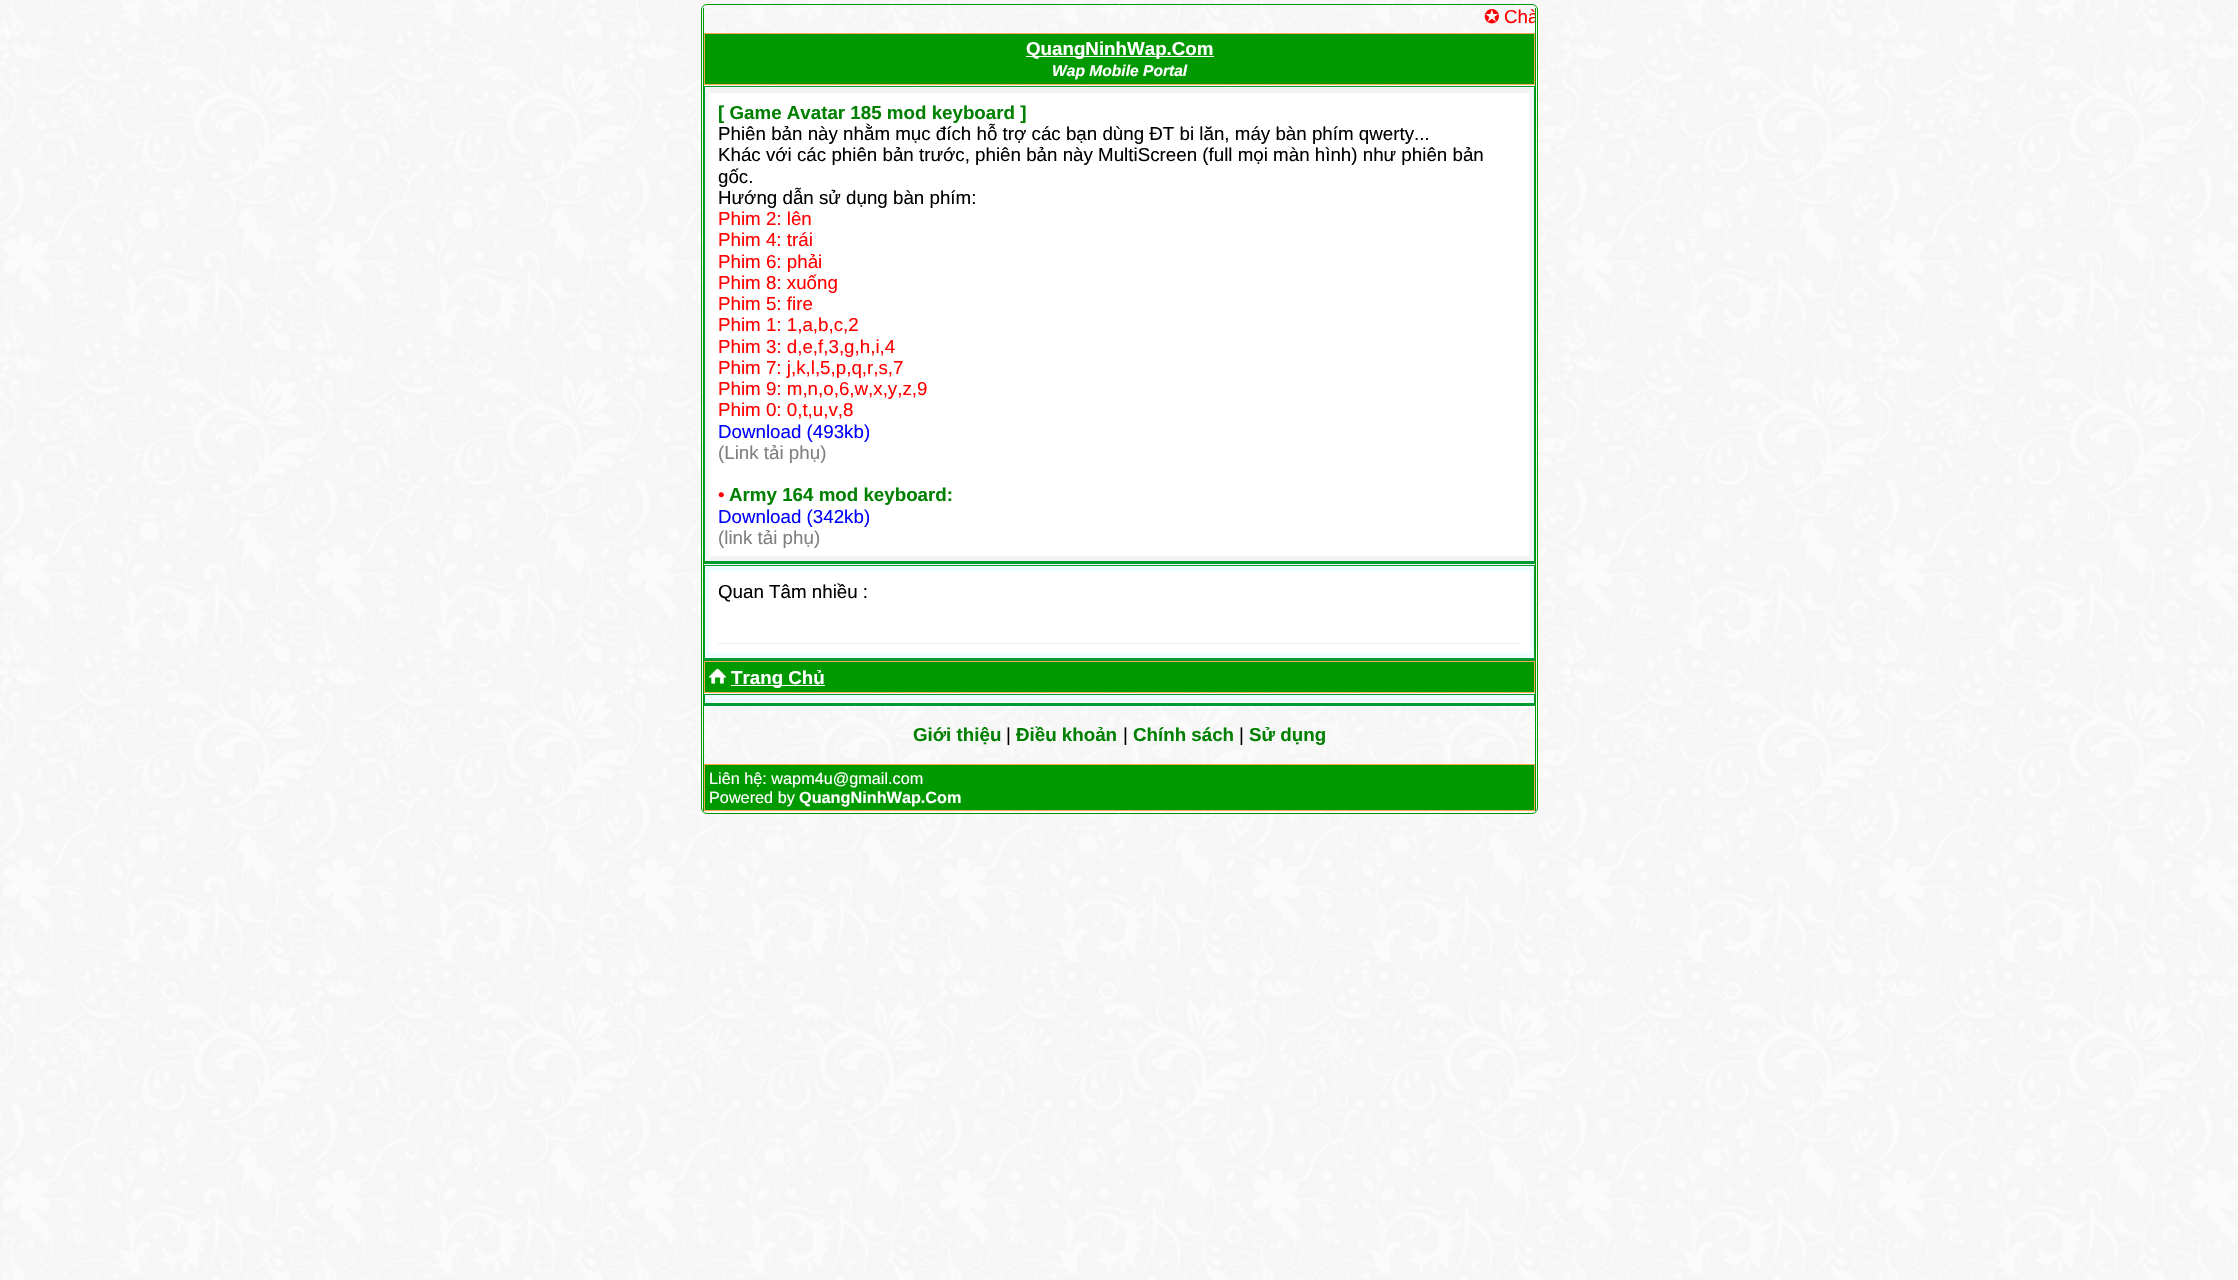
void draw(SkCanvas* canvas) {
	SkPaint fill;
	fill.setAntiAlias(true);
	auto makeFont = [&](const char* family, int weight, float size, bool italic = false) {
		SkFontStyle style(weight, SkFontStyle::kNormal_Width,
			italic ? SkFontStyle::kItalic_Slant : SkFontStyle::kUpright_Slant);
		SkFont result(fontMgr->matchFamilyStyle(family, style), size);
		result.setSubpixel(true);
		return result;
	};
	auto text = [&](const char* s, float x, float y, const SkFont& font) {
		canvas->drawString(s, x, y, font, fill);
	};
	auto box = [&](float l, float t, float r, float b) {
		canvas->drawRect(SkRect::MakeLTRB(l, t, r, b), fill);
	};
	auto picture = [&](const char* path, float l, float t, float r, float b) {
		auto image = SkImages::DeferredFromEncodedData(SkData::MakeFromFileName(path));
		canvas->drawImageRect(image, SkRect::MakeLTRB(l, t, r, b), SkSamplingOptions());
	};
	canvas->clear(0xFFFFFFFF);
	picture("image0.png", 0, 0, 2238, 1280);
	fill.setStyle(SkPaint::kStroke_Style);
	fill.setStrokeWidth(1);
	fill.setColor(0xFF009900);
	canvas->drawRoundRect(SkRect::MakeLTRB(701.5f, 4.5f, 1537.5f, 813.5f), 5.5f, 5.5f, fill);
	fill.setStyle(SkPaint::kFill_Style);
	box(1535, 8, 1536, 811);
	box(703, 8, 704, 811);
	canvas->drawRect(SkRect::MakeLTRB(704.5f, 33.5f, 1534.5f, 84.5f), fill);
	fill.setStyle(SkPaint::kStroke_Style);
	fill.setColor(0xFFFFA54F);
	canvas->drawRect(SkRect::MakeLTRB(704.5f, 33.5f, 1534.5f, 84.5f), fill);
	fill.setStyle(SkPaint::kFill_Style);
	fill.setColor(0xFFFFFFFF);
	box(1026, 56, 1214, 57);
	fill.setColor(0xFFF3F3F3);
	box(705, 88, 1534, 561);
	fill.setColor(0xFF009933);
	box(704, 86, 1535, 87);
	box(1534, 86, 1535, 564);
	box(704, 561, 1535, 564);
	box(704, 86, 705, 564);
	fill.setColor(0xFFFFFFFF);
	box(709, 93, 1530, 556);
	fill.setColor(0xFFECFCFF);
	box(705, 566, 1534, 658);
	fill.setColor(0xFF009933);
	box(704, 565, 1535, 566);
	box(1534, 565, 1535, 660);
	box(704, 658, 1535, 661);
	box(704, 565, 705, 660);
	fill.setColor(0xFFFFFFFF);
	box(709, 571, 1530, 653);
	fill.setColor(0xFFEFEFEF);
	box(718, 643, 1521, 644);
	fill.setColor(0xFF009900);
	canvas->drawRect(SkRect::MakeLTRB(704.5f, 661.5f, 1534.5f, 692.5f), fill);
	fill.setStyle(SkPaint::kStroke_Style);
	fill.setColor(0xFFFFA54F);
	canvas->drawRect(SkRect::MakeLTRB(704.5f, 661.5f, 1534.5f, 692.5f), fill);
	picture("image1.png", 708, 668, 727, 684);
	fill.setStyle(SkPaint::kFill_Style);
	fill.setColor(0xFFFFFFFF);
	box(731, 685, 825, 686);
	fill.setColor(0xFFECFCFF);
	box(705, 695, 1534, 703);
	fill.setColor(0xFF009933);
	box(704, 694, 1535, 695);
	box(1534, 694, 1535, 705);
	box(704, 703, 1535, 706);
	box(704, 694, 705, 705);
	fill.setColor(0xFF009900);
	canvas->drawRect(SkRect::MakeLTRB(704.5f, 764.5f, 1534.5f, 810.5f), fill);
	fill.setStyle(SkPaint::kStroke_Style);
	fill.setColor(0xFFFFA54F);
	canvas->drawRect(SkRect::MakeLTRB(704.5f, 764.5f, 1534.5f, 810.5f), fill);
	auto font1 = makeFont("DejaVu Sans", 400, 18.75f);
	fill.setStyle(SkPaint::kFill_Style);
	fill.setColor(0xFFFF0000);
	text("✪", 1484, 23, font1);
	canvas->save();
	canvas->clipRect(SkRect::MakeLTRB(704, 5, 1535, 28));
	auto font2 = makeFont("Liberation Sans", 400, 18.75f);
	text("Chà", 1504, 23, font2);
	canvas->restore();
	auto font3 = makeFont("Liberation Sans", 700, 18.75f);
	fill.setColor(0xFFFFFFFF);
	text("QuangNinhWap.Com", 1026, 55, font3);
	auto font4 = makeFont("Liberation Sans", 700, 15.6f, true);
	text("Wap Mobile Portal", 1052, 76, font4);
	fill.setColor(0xFF008000);
	text("[ Game Avatar 185 mod keyboard ]", 718, 119, font3);
	fill.setColor(0xFF000000);
	text("Phiên bản này nhằm mục đích hỗ trợ các bạn dùng ĐT bi lăn, máy bàn phím qwerty...", 718, 140, font2);
	text("Khác với các phiên bản trước, phiên bản này MultiScreen (full mọi màn hình) như phiên bản", 718, 161, font2);
	text("gốc.", 718, 183, font2);
	text("Hướng dẫn sử dụng bàn phím:", 718, 204, font2);
	fill.setColor(0xFFFF0000);
	text("Phim 2: lên", 718, 225, font2);
	text("Phim 4: trái", 718, 246, font2);
	text("Phim 6: phải", 718, 268, font2);
	text("Phim 8: xuống", 718, 289, font2);
	text("Phim 5: fire", 718, 310, font2);
	text("Phim 1: 1,a,b,c,2", 718, 331, font2);
	text("Phim 3: d,e,f,3,g,h,i,4", 718, 353, font2);
	text("Phim 7: j,k,l,5,p,q,r,s,7", 718, 374, font2);
	text("Phim 9: m,n,o,6,w,x,y,z,9", 718, 395, font2);
	text("Phim 0: 0,t,u,v,8", 718, 416, font2);
	fill.setColor(0xFF0000FF);
	text("Download (493kb)", 718, 438, font2);
	fill.setColor(0xFF808080);
	text("(Link tải phụ)", 718, 459, font2);
	fill.setColor(0xFFFF0000);
	text("•", 718, 501, font2);
	fill.setColor(0xFF008000);
	text("Army 164 mod keyboard:", 729, 501, font3);
	fill.setColor(0xFF0000FF);
	text("Download (342kb)", 718, 523, font2);
	fill.setColor(0xFF808080);
	text("(link tải phụ)", 718, 544, font2);
	fill.setColor(0xFF000000);
	text("Quan Tâm nhiều :", 718, 598, font2);
	fill.setColor(0xFFFFFFFF);
	text("Trang Chủ", 731, 684, font3);
	fill.setColor(0xFF008000);
	text("Giới thiệu", 913, 741, font3);
	fill.setColor(0xFF000000);
	text("|", 1006, 741, font2);
	fill.setColor(0xFF008000);
	text("Điều khoản", 1016, 741, font3);
	fill.setColor(0xFF000000);
	text("|", 1123, 741, font2);
	fill.setColor(0xFF008000);
	text("Chính sách", 1133, 741, font3);
	fill.setColor(0xFF000000);
	text("|", 1239, 741, font2);
	fill.setColor(0xFF008000);
	text("Sử dụng", 1249, 741, font3);
	auto font5 = makeFont("Liberation Sans", 400, 16.25f);
	fill.setColor(0xFFFFFFFF);
	text("Liên hệ: wapm4u@gmail.com", 709, 784, font5);
	text("Powered by", 709, 803, font5);
	auto font6 = makeFont("Liberation Sans", 700, 16.25f);
	text("QuangNinhWap.Com", 799, 803, font6);
}
